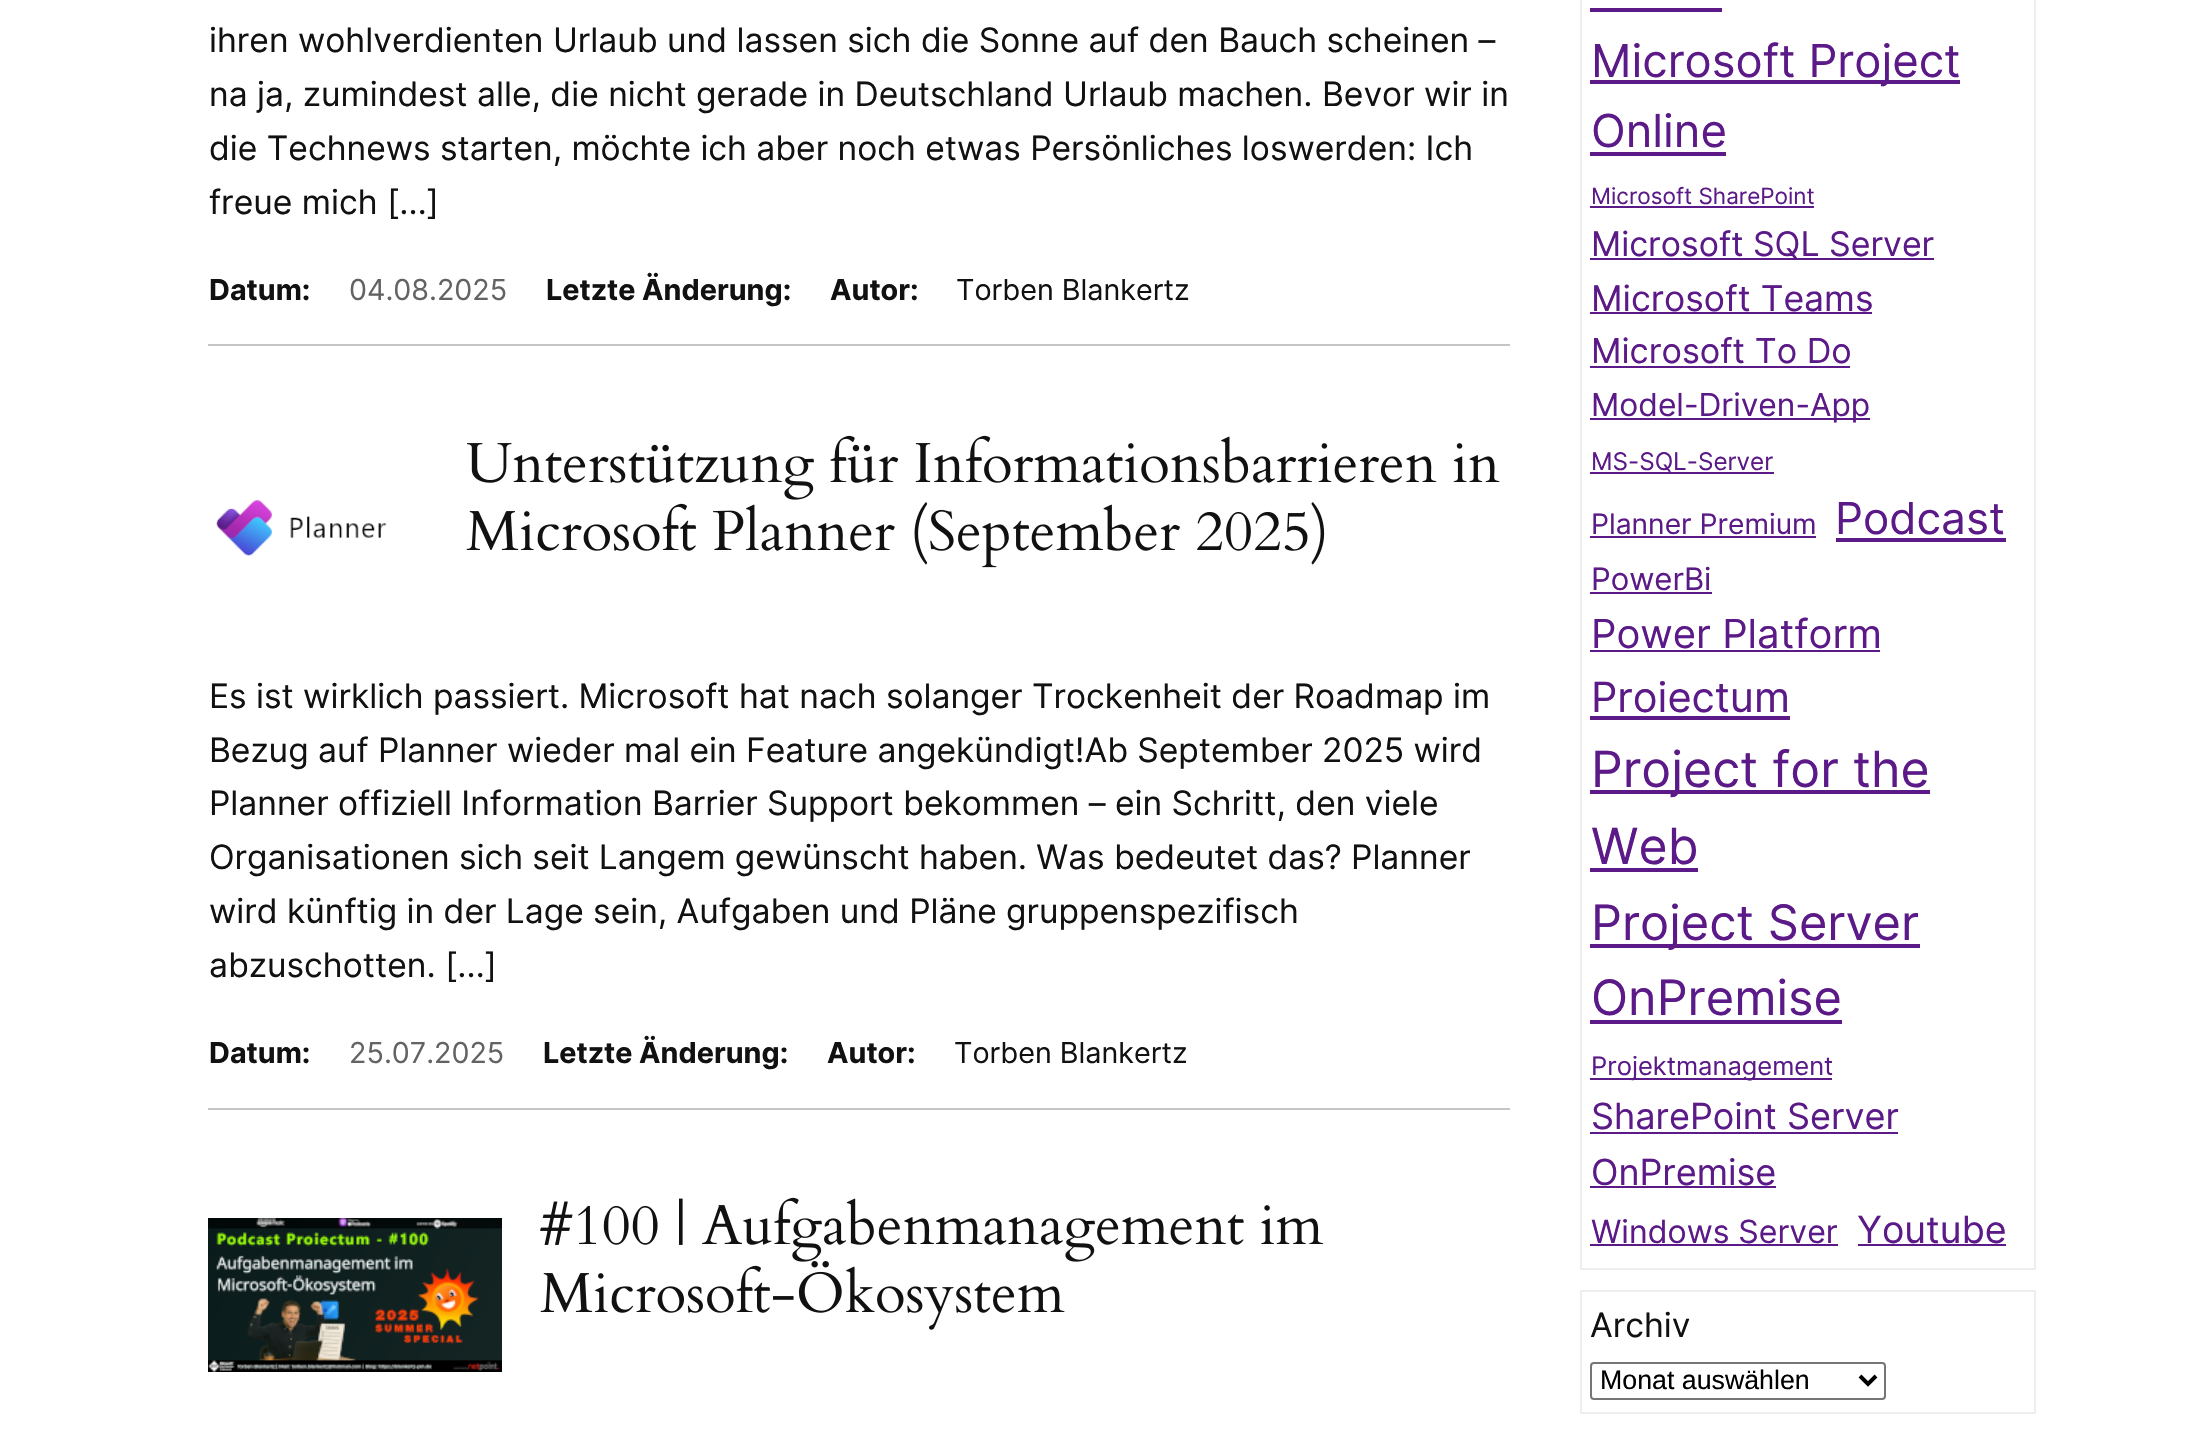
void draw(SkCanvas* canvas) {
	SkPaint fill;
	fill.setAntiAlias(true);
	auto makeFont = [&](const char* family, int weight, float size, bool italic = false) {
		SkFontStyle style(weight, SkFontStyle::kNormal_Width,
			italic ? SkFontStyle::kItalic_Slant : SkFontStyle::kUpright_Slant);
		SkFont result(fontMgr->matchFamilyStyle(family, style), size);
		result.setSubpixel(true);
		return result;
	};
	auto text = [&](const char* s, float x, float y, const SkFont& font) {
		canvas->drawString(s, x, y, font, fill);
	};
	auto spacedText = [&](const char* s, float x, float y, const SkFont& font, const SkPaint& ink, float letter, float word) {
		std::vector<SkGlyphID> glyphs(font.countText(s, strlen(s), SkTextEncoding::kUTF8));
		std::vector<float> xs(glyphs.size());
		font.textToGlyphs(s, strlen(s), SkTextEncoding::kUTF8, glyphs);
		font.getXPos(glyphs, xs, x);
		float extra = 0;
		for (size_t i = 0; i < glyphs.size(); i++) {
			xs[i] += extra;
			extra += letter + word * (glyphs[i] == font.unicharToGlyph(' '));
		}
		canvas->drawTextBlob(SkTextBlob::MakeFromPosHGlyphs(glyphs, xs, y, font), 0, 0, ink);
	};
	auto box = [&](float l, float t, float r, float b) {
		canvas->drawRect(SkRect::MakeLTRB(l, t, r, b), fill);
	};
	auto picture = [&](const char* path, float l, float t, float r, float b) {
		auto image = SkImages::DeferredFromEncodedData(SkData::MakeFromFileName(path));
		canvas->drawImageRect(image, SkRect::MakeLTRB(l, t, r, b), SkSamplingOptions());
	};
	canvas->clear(0xFFFFFFFF);
	fill.setColor(0xFFC5C5C5);
	box(208, 344, 1510, 346);
	picture("image0.png", 216, 500, 387, 556);
	picture("image1.png", 467, 435, 1500, 500);
	picture("image2.png", 466, 502, 1325, 568);
	box(208, 1108, 1510, 1110);
	picture("image3.png", 208, 1218, 502, 1372);
	picture("image4.png", 540, 1197, 1324, 1262);
	picture("image5.png", 540, 1261, 1065, 1330);
	fill.setStyle(SkPaint::kStroke_Style);
	fill.setStrokeWidth(2);
	fill.setColor(0xFFEEEEEE);
	canvas->drawRect(SkRect::MakeLTRB(1581, -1, 2035, 1269), fill);
	fill.setStyle(SkPaint::kFill_Style);
	fill.setColor(0xFF5B1A87);
	box(1590, 8, 1722, 12);
	box(1590, 80, 1960, 84);
	box(1590, 152, 1726, 156);
	box(1590, 206, 1814, 208);
	box(1590, 258, 1934, 260);
	box(1590, 312, 1872, 314);
	box(1590, 366, 1850, 368);
	box(1590, 418, 1870, 420);
	box(1590, 472, 1774, 474);
	box(1590, 536, 1816, 538);
	box(1836, 538, 2006, 542);
	box(1590, 592, 1712, 594);
	box(1590, 650, 1880, 652);
	box(1590, 716, 1790, 720);
	box(1590, 790, 1930, 794);
	box(1590, 868, 1698, 872);
	box(1590, 944, 1920, 948);
	box(1590, 1020, 1842, 1024);
	box(1590, 1078, 1832, 1080);
	box(1590, 1132, 1898, 1134);
	box(1590, 1186, 1776, 1188);
	box(1590, 1244, 1838, 1246);
	box(1858, 1244, 2006, 1246);
	fill.setStyle(SkPaint::kStroke_Style);
	fill.setColor(0xFFEEEEEE);
	canvas->drawRect(SkRect::MakeLTRB(1581, 1291, 2035, 1413), fill);
	fill.setColor(0xFF767676);
	canvas->drawRoundRect(SkRect::MakeLTRB(1591, 1363, 1885, 1399), 3, 3, fill);
	fill.setStrokeWidth(4);
	fill.setColor(0xFF000000);
	canvas->drawPath(SkPathBuilder().moveTo(1860, 1376).lineTo(1868, 1384).lineTo(1876, 1376).detach(), fill);
	auto font1 = makeFont("Inter", 400, 33.6f);
	fill.setStyle(SkPaint::kFill_Style);
	fill.setColor(0xFF111111);
	text("ihren wohlverdienten Urlaub und lassen sich die Sonne auf den Bauch scheinen –", 209, 52, font1);
	text("na ja, zumindest alle, die nicht gerade in Deutschland Urlaub machen. Bevor wir in", 209, 106, font1);
	spacedText("die Technews starten, möchte ich aber noch etwas Persönliches loswerden: Ich", 209, 160, font1, fill, 0, -0.1f);
	text("freue mich […]", 209, 214, font1);
	auto font2 = makeFont("Inter", 700, 28.75f);
	text("Datum:", 209, 300, font2);
	auto font3 = makeFont("Inter", 400, 28.75f);
	fill.setColor(0xFF636363);
	text("04.08.2025", 349, 300, font3);
	fill.setColor(0xFF111111);
	text("Letzte Änderung:", 546, 300, font2);
	text("Autor:", 830, 300, font2);
	text("Torben Blankertz", 956, 300, font3);
	spacedText("Es ist wirklich passiert. Microsoft hat nach solanger Trockenheit der Roadmap im", 209, 708, font1, fill, 0, -0.1f);
	spacedText("Bezug auf Planner wieder mal ein Feature angekündigt!Ab September 2025 wird", 209, 762, font1, fill, 0, -0.1f);
	spacedText("Planner offiziell Information Barrier Support bekommen – ein Schritt, den viele", 209, 815, font1, fill, 0, -0.1f);
	spacedText("Organisationen sich seit Langem gewünscht haben. Was bedeutet das? Planner", 209, 869, font1, fill, 0, -0.25f);
	spacedText("wird künftig in der Lage sein, Aufgaben und Pläne gruppenspezifisch", 209, 923, font1, fill, 0, -0.1f);
	text("abzuschotten. […]", 209, 977, font1);
	text("Datum:", 209, 1063, font2);
	fill.setColor(0xFF636363);
	text("25.07.2025", 349, 1063, font3);
	fill.setColor(0xFF111111);
	text("Letzte Änderung:", 543, 1063, font2);
	text("Autor:", 827, 1063, font2);
	text("Torben Blankertz", 954, 1063, font3);
	auto font4 = makeFont("Inter", 400, 45.5f);
	fill.setColor(0xFF5B1A87);
	text("Microsoft Project", 1591, 77, font4);
	text("Online", 1591, 147, font4);
	auto font5 = makeFont("Inter", 400, 22.5f);
	text("Microsoft SharePoint", 1591, 204, font5);
	auto font6 = makeFont("Inter", 400, 33.9f);
	text("Microsoft SQL Server", 1591, 256, font6);
	auto font7 = makeFont("Inter", 400, 35.5f);
	text("Microsoft Teams", 1591, 311, font7);
	auto font8 = makeFont("Inter", 400, 34.25f);
	text("Microsoft To Do", 1591, 363, font8);
	auto font9 = makeFont("Inter", 400, 31.75f);
	text("Model-Driven-App", 1591, 416, font9);
	auto font10 = makeFont("Inter", 400, 24.25f);
	text("MS-SQL-Server", 1591, 470, font10);
	auto font11 = makeFont("Inter", 400, 28.25f);
	text("Planner Premium", 1591, 534, font11);
	auto font12 = makeFont("Inter", 400, 44);
	text("Podcast", 1835, 534, font12);
	auto font13 = makeFont("Inter", 400, 31);
	text("PowerBi", 1591, 590, font13);
	auto font14 = makeFont("Inter", 400, 40);
	text("Power Platform", 1591, 648, font14);
	auto font15 = makeFont("Inter", 400, 41.5f);
	text("Proiectum", 1591, 712, font15);
	auto font16 = makeFont("Inter", 400, 50);
	text("Project for the", 1591, 787, font16);
	text("Web", 1591, 864, font16);
	auto font17 = makeFont("Inter", 400, 48.75f);
	text("Project Server", 1591, 940, font17);
	text("OnPremise", 1591, 1015, font17);
	auto font18 = makeFont("Inter", 400, 25.5f);
	text("Projektmanagement", 1591, 1075, font18);
	auto font19 = makeFont("Inter", 400, 36);
	text("SharePoint Server", 1591, 1129, font19);
	text("OnPremise", 1591, 1185, font19);
	auto font20 = makeFont("Inter", 400, 32);
	text("Windows Server", 1591, 1243, font20);
	auto font21 = makeFont("Inter", 400, 37.5f);
	text("Youtube", 1857, 1243, font21);
	fill.setColor(0xFF111111);
	text("Archiv", 1590, 1337, font1);
	auto font22 = makeFont("Liberation Sans", 400, 26.75f);
	fill.setColor(0xFF000000);
	text("Monat auswählen", 1600, 1389, font22);
}
